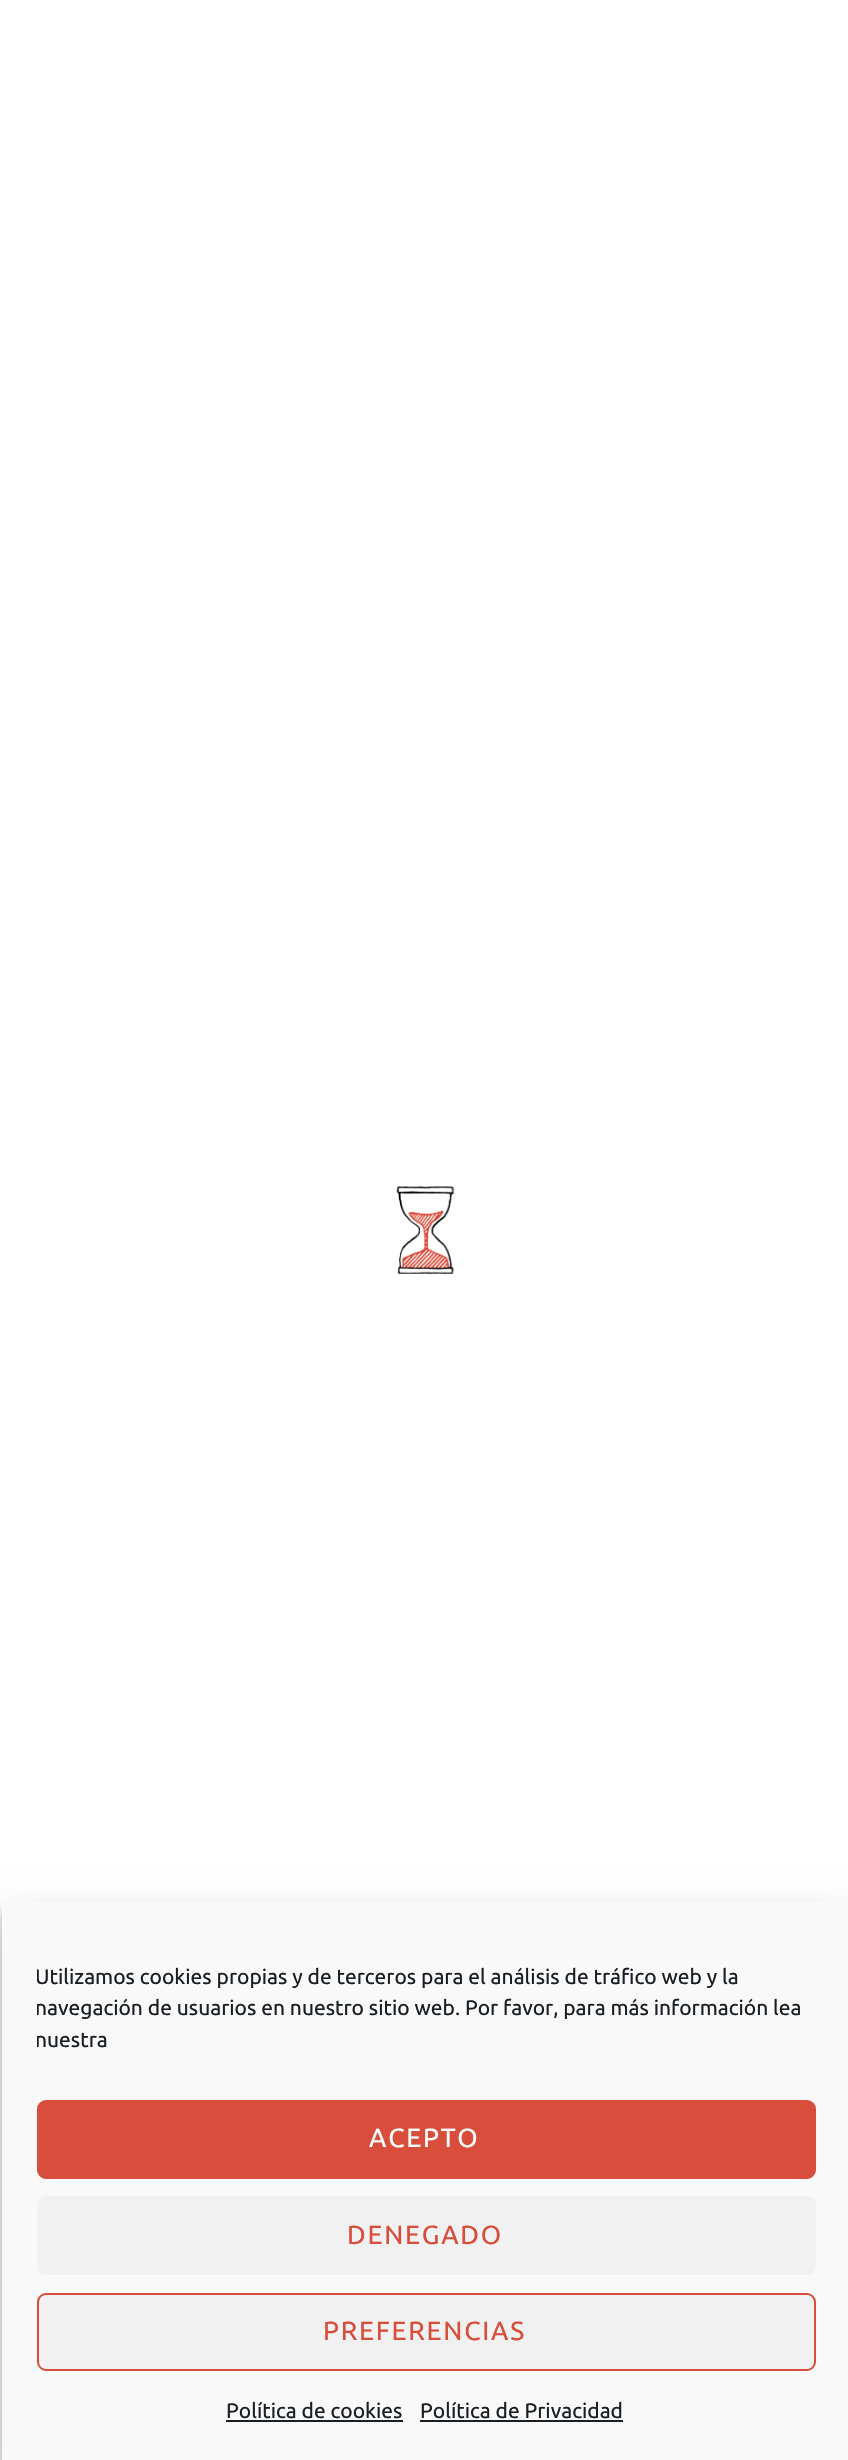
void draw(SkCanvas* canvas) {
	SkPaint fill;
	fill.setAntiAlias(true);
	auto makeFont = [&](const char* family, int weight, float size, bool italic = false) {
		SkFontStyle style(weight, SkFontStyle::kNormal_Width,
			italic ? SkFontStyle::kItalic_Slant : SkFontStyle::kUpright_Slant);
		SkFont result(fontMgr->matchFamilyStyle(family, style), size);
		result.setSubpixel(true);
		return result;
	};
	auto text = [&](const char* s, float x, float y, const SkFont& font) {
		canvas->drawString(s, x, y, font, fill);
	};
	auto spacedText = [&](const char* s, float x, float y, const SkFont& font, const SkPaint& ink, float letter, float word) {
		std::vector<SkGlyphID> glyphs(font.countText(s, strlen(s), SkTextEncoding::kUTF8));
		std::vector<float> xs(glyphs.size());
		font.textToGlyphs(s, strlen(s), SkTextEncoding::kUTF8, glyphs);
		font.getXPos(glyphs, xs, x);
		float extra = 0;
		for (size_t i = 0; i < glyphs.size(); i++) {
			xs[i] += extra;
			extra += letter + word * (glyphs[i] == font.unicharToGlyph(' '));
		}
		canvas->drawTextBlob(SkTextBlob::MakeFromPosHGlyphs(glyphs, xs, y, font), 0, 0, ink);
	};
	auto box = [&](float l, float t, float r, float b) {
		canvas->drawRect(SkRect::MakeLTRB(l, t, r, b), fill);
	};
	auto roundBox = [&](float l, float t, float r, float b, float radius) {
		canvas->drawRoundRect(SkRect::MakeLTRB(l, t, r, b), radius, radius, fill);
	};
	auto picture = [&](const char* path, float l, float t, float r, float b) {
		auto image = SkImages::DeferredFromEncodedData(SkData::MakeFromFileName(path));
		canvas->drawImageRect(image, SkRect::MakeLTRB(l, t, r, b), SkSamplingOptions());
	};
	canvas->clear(0xFFFFFFFF);
	picture("image0.png", 396, 1186, 455, 1274);
	fill.setColor(0x3B000000);
	fill.setMaskFilter(SkMaskFilter::MakeBlur(kNormal_SkBlurStyle, 5));
	canvas->drawRect(SkRect::MakeLTRB(2, 1911, 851, 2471), fill);
	fill.setMaskFilter(nullptr);
	fill.setColor(0x30000000);
	fill.setMaskFilter(SkMaskFilter::MakeBlur(kNormal_SkBlurStyle, 17.5f));
	canvas->drawRect(SkRect::MakeLTRB(2, 1918, 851, 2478), fill);
	fill.setMaskFilter(nullptr);
	fill.setColor(0xFFF9F9F9);
	box(2, 1901, 848, 2460);
	fill.setColor(0xFFD94D3C);
	canvas->drawRoundRect(SkRect::MakeLTRB(38, 2101, 815, 2178), 8, 8, fill);
	fill.setStyle(SkPaint::kStroke_Style);
	fill.setStrokeWidth(2);
	canvas->drawRoundRect(SkRect::MakeLTRB(38, 2101, 815, 2178), 8, 8, fill);
	fill.setStyle(SkPaint::kFill_Style);
	fill.setColor(0xFFF1F1F1);
	roundBox(37, 2196, 816, 2275, 9);
	canvas->drawRoundRect(SkRect::MakeLTRB(38, 2294, 815, 2370), 8, 8, fill);
	fill.setStyle(SkPaint::kStroke_Style);
	fill.setColor(0xFFD94D3C);
	canvas->drawRoundRect(SkRect::MakeLTRB(38, 2294, 815, 2370), 8, 8, fill);
	fill.setStyle(SkPaint::kFill_Style);
	fill.setColor(0xFF191E23);
	box(226, 2420, 403, 2422);
	box(420, 2420, 623, 2422);
	canvas->save();
	canvas->clipRect(SkRect::MakeLTRB(37, 1962, 816, 2065));
	auto font1 = makeFont("Ubuntu", 400, 21);
	text("Utilizamos cookies propias y de terceros para el análisis de tráfico web y la", 35, 1984, font1);
	text("navegación de usuarios en nuestro sitio web. Por favor, para más información lea", 35, 2015, font1);
	text("nuestra", 35, 2047, font1);
	canvas->restore();
	auto font2 = makeFont("Ubuntu", 400, 26.25f);
	fill.setColor(0xFFFFFFFF);
	spacedText("ACEPTO", 369, 2147, font2, fill, 1.75f, 0);
	fill.setColor(0xFFD94D3C);
	spacedText("DENEGADO", 347, 2244, font2, fill, 1.75f, 0);
	spacedText("PREFERENCIAS", 323, 2340, font2, fill, 1.75f, 0);
	fill.setColor(0xFF191E23);
	text("Política de cookies", 226, 2418, font1);
	text("Política de Privacidad", 420, 2418, font1);
}
